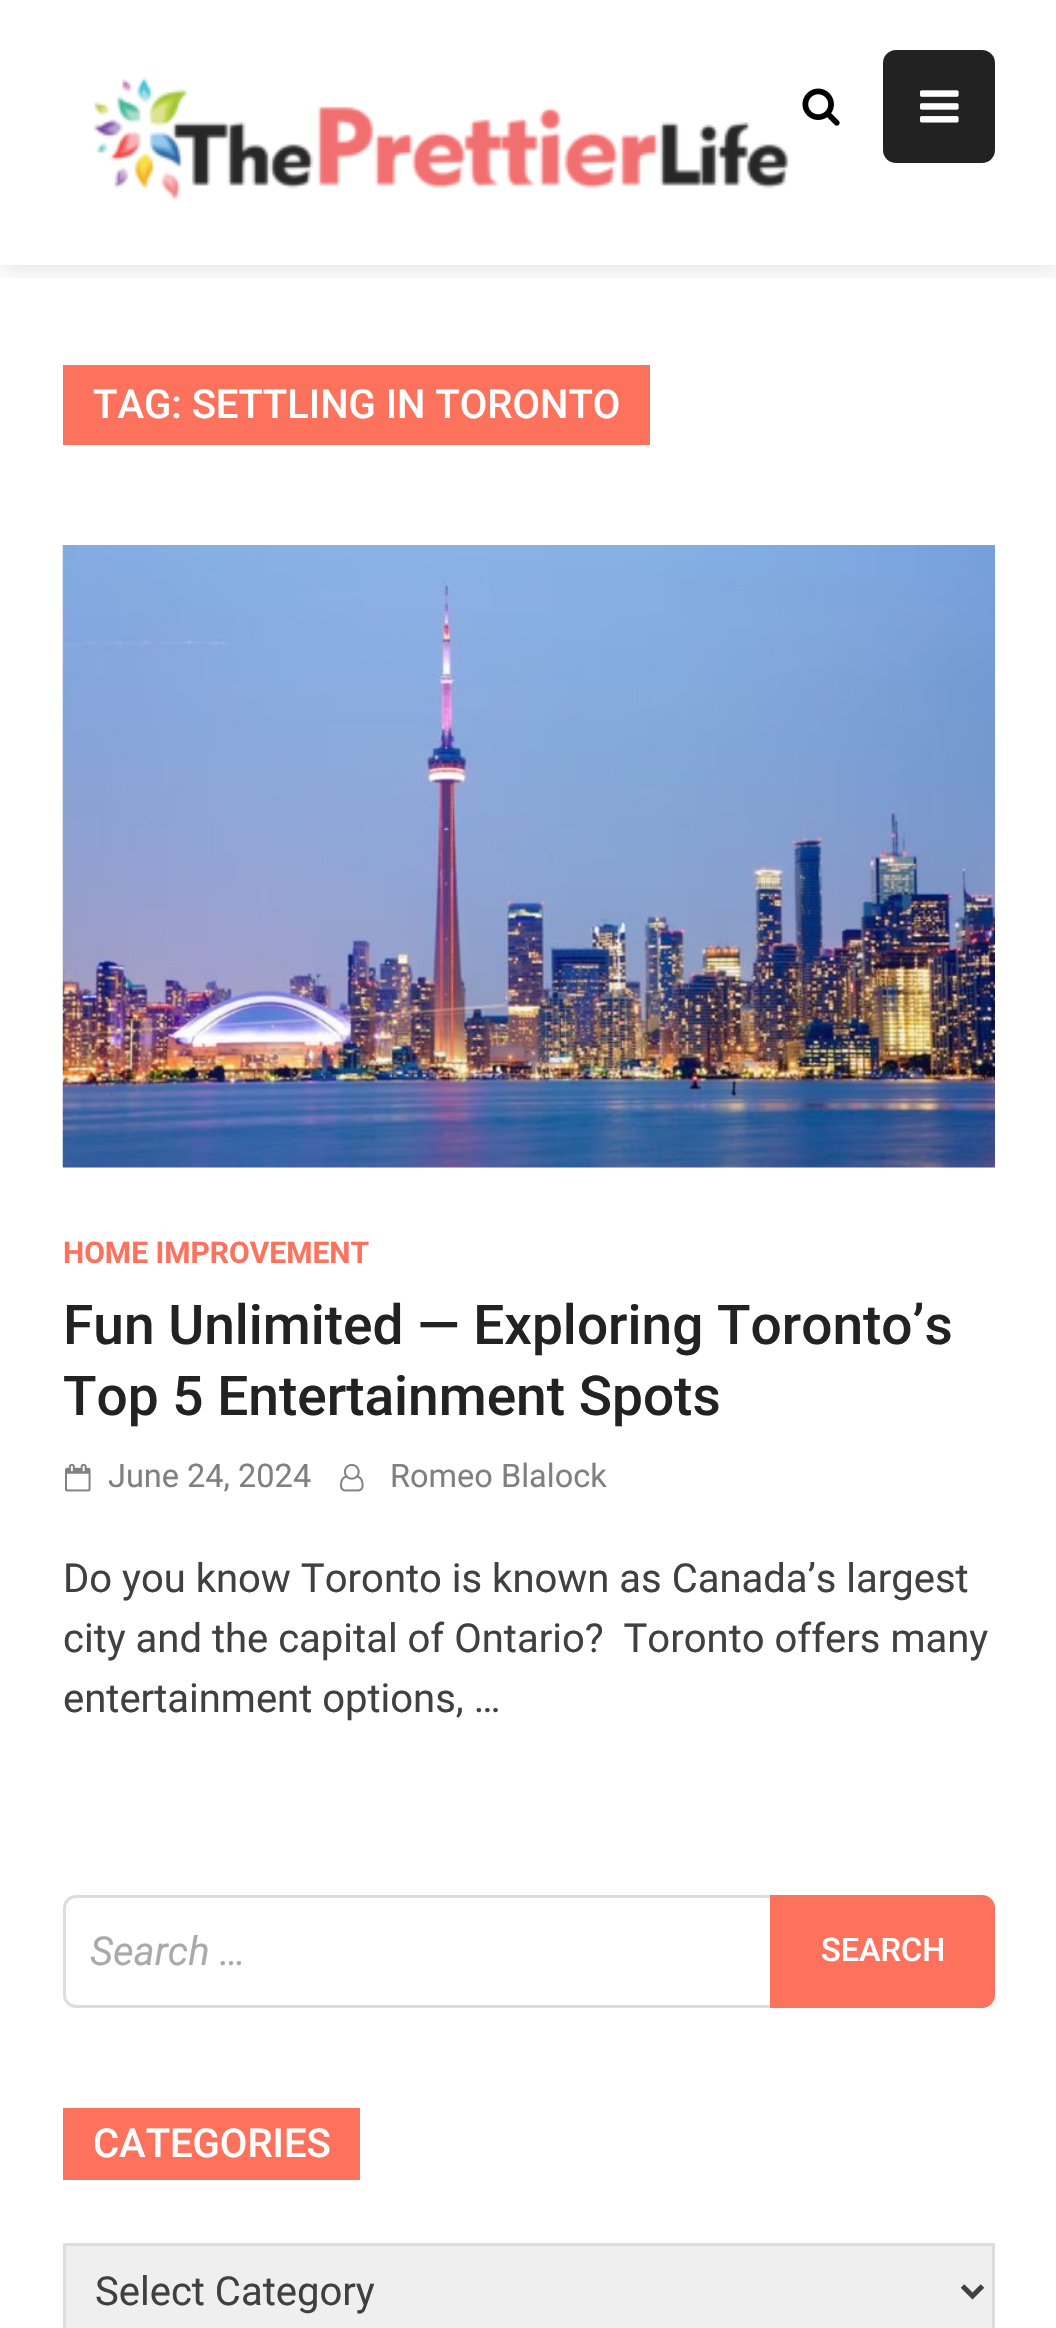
void draw(SkCanvas* canvas) {
	SkPaint fill;
	fill.setAntiAlias(true);
	auto makeFont = [&](const char* family, int weight, float size, bool italic = false) {
		SkFontStyle style(weight, SkFontStyle::kNormal_Width,
			italic ? SkFontStyle::kItalic_Slant : SkFontStyle::kUpright_Slant);
		SkFont result(fontMgr->matchFamilyStyle(family, style), size);
		result.setSubpixel(true);
		return result;
	};
	auto text = [&](const char* s, float x, float y, const SkFont& font) {
		canvas->drawString(s, x, y, font, fill);
	};
	auto box = [&](float l, float t, float r, float b) {
		canvas->drawRect(SkRect::MakeLTRB(l, t, r, b), fill);
	};
	auto roundBox = [&](float l, float t, float r, float b, float radius) {
		canvas->drawRoundRect(SkRect::MakeLTRB(l, t, r, b), radius, radius, fill);
	};
	auto picture = [&](const char* path, float l, float t, float r, float b) {
		auto image = SkImages::DeferredFromEncodedData(SkData::MakeFromFileName(path));
		canvas->drawImageRect(image, SkRect::MakeLTRB(l, t, r, b), SkSamplingOptions());
	};
	canvas->clear(0xFFFFFFFF);
	canvas->save();
	canvas->clipRect(SkRect::MakeLTRB(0, 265, 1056, 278));
	fill.setColor(0x1A000000);
	fill.setMaskFilter(SkMaskFilter::MakeBlur(kNormal_SkBlurStyle, 10));
	canvas->drawRect(SkRect::MakeLTRB(0, 5, 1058, 270), fill);
	fill.setMaskFilter(nullptr);
	canvas->restore();
	picture("image0.png", 93, 77, 789, 201);
	picture("image1.png", 802, 88, 840, 126);
	fill.setColor(0xFF222222);
	roundBox(883, 50, 995, 163, 13);
	picture("image2.png", 920, 90, 959, 123);
	fill.setColor(0xFFFC725D);
	box(63, 365, 650, 445);
	picture("image3.png", 62, 545, 995, 1168);
	picture("image4.png", 65, 1463, 91, 1492);
	picture("image5.png", 340, 1463, 364, 1492);
	fill.setStyle(SkPaint::kStroke_Style);
	fill.setStrokeWidth(3);
	fill.setColor(0xFFDDDDDD);
	canvas->drawRoundRect(SkRect::MakeLTRB(64.5f, 1896.5f, 993.5f, 2006.5f), 11.5f, 11.5f, fill);
	fill.setStyle(SkPaint::kFill_Style);
	fill.setColor(0xFFFC725D);
	canvas->drawPath(SkPathBuilder().moveTo(770, 1895).lineTo(982, 1895).cubicTo(989, 1895, 995, 1901, 995, 1908).lineTo(995, 1995).cubicTo(995, 2002, 989, 2008, 982, 2008).lineTo(770, 2008).close().detach(), fill);
	box(63, 2108, 360, 2180);
	fill.setColor(0xFFEFEFEF);
	canvas->drawRect(SkRect::MakeLTRB(64.5f, 2244.5f, 993.5f, 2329.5f), fill);
	fill.setStyle(SkPaint::kStroke_Style);
	fill.setColor(0xFFDDDDDD);
	canvas->drawRect(SkRect::MakeLTRB(64.5f, 2244.5f, 993.5f, 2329.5f), fill);
	fill.setStrokeWidth(5);
	fill.setColor(0xFF404040);
	canvas->drawPath(SkPathBuilder().moveTo(962.5f, 2286).lineTo(972.5f, 2296).lineTo(982.5f, 2286).detach(), fill);
	auto font1 = makeFont("Roboto", 500, 40);
	fill.setStyle(SkPaint::kFill_Style);
	fill.setColor(0xFFFFFFFF);
	text("TAG: SETTLING IN TORONTO", 93, 418, font1);
	auto font2 = makeFont("Roboto", 700, 30);
	fill.setColor(0xFFFC725D);
	text("HOME IMPROVEMENT", 63, 1263, font2);
	auto font3 = makeFont("Roboto", 500, 55);
	fill.setColor(0xFF222222);
	text("Fun Unlimited — Exploring Toronto’s", 63, 1344, font3);
	text("Top 5 Entertainment Spots", 63, 1415, font3);
	auto font4 = makeFont("Roboto", 400, 32.5f);
	fill.setColor(0xFF808080);
	text("June 24, 2024", 108, 1487, font4);
	text("Romeo Blalock", 390, 1487, font4);
	auto font5 = makeFont("Roboto", 400, 40);
	fill.setColor(0xFF404040);
	text("Do you know Toronto is known as Canada’s largest", 63, 1592, font5);
	text("city and the capital of Ontario?  Toronto offers many", 63, 1652, font5);
	text("entertainment options, …", 63, 1712, font5);
	auto font6 = makeFont("Roboto", 400, 40, true);
	fill.setColor(0xFFAAAAAA);
	text("Search …", 90, 1965, font6);
	auto font7 = makeFont("Roboto", 500, 32.5f);
	fill.setColor(0xFFFFFFFF);
	text("SEARCH", 821, 1961, font7);
	text("CATEGORIES", 93, 2157, font1);
	fill.setColor(0xFF404040);
	text("Select Category", 95, 2305, font5);
}
